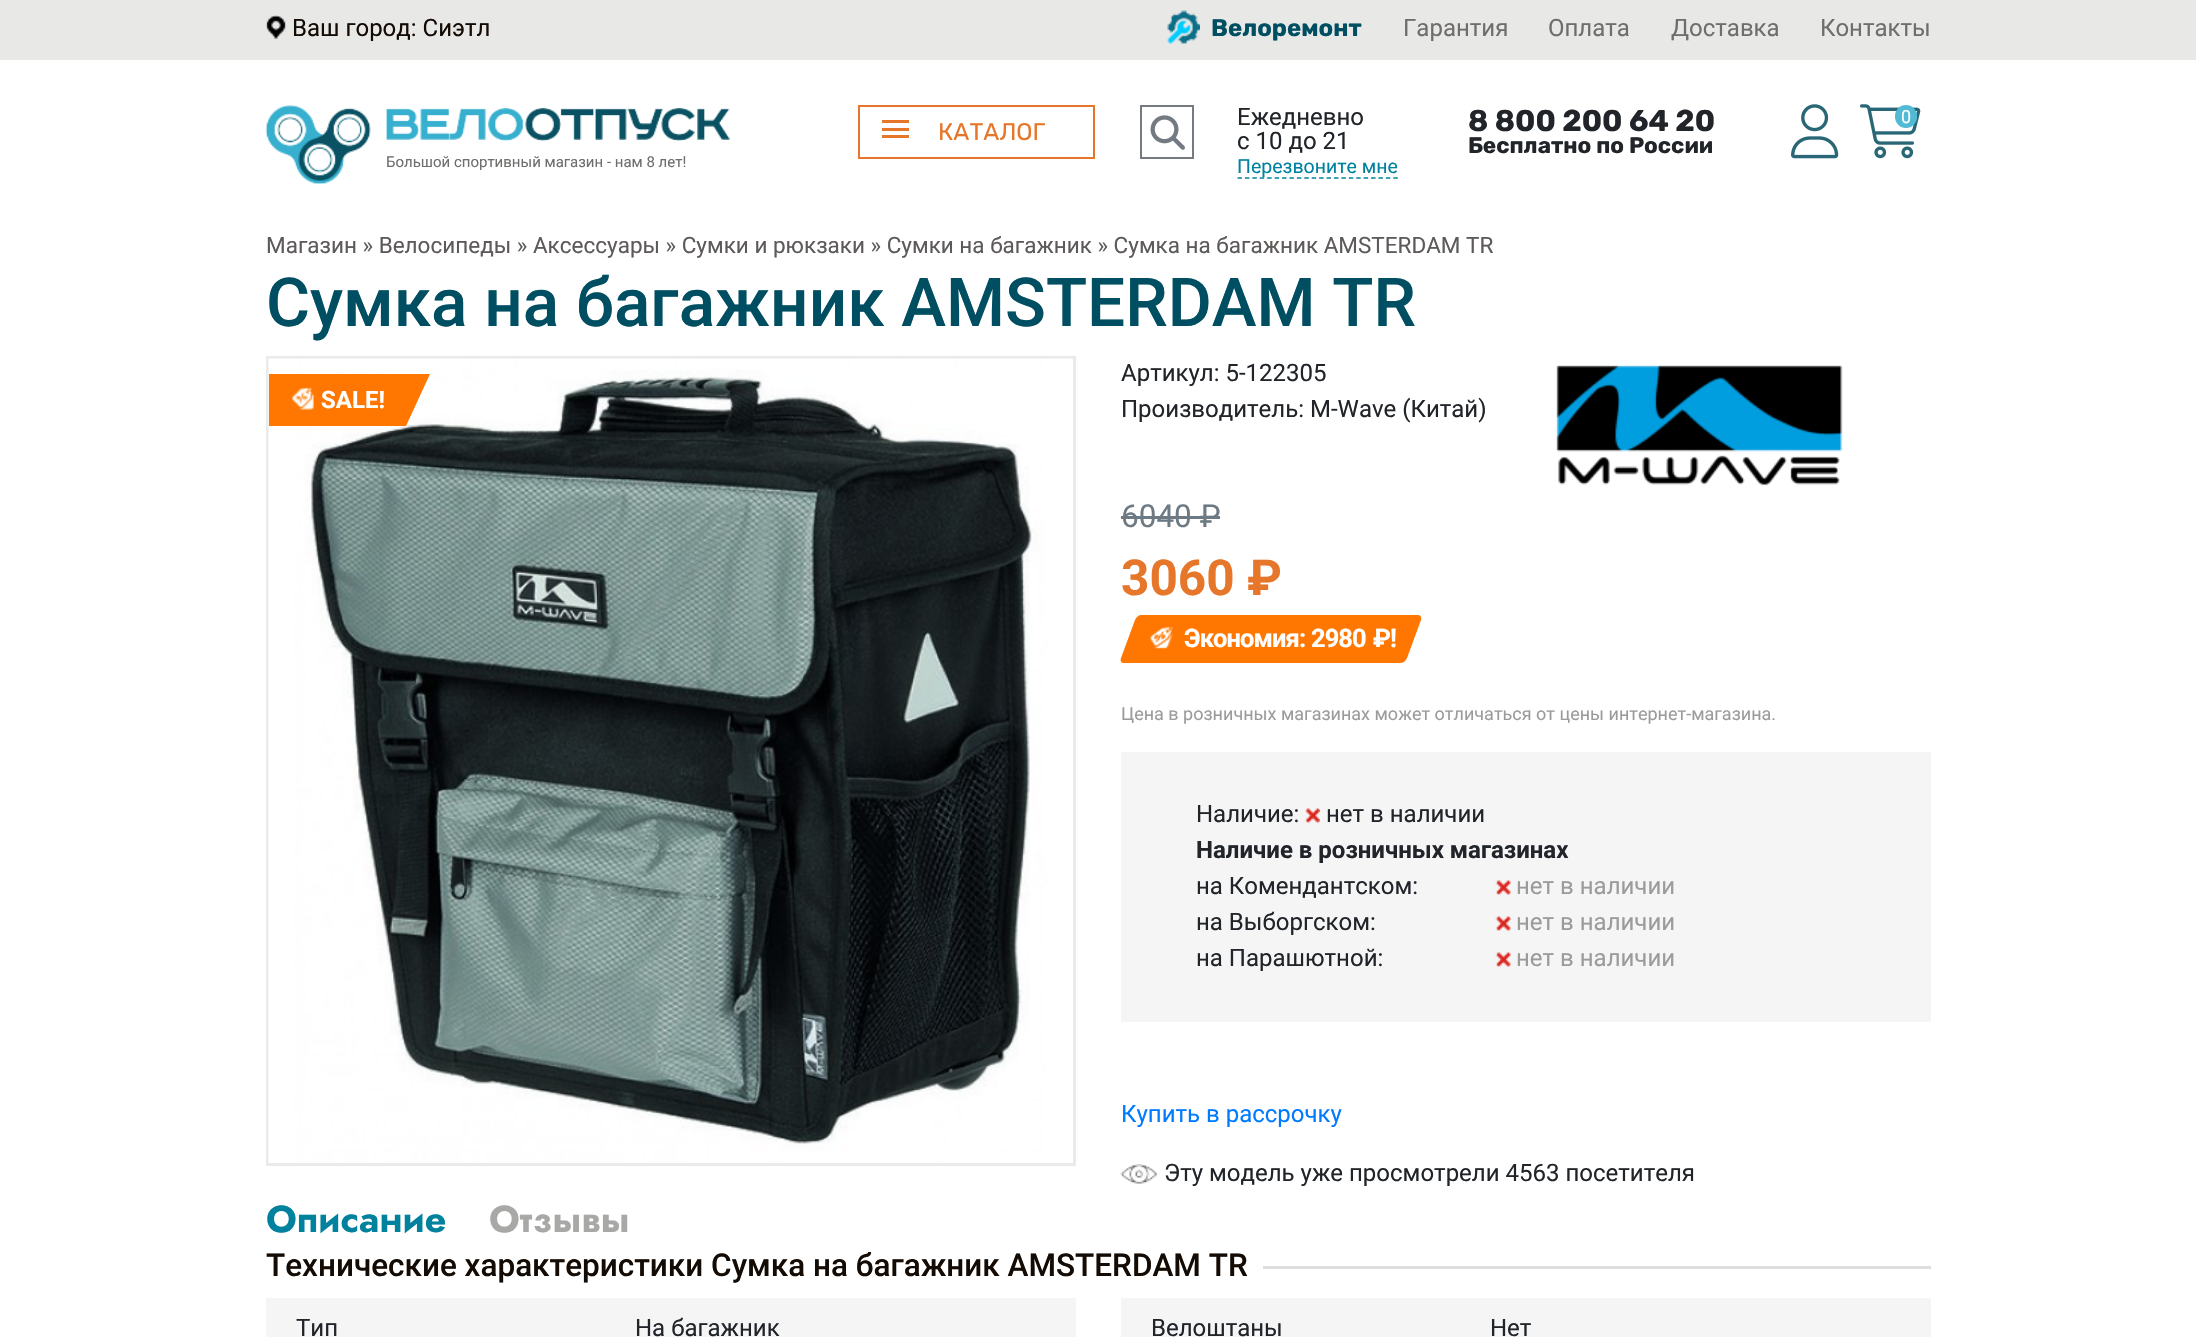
void draw(SkCanvas* canvas) {
	SkPaint fill;
	fill.setAntiAlias(true);
	auto makeFont = [&](const char* family, int weight, float size, bool italic = false) {
		SkFontStyle style(weight, SkFontStyle::kNormal_Width,
			italic ? SkFontStyle::kItalic_Slant : SkFontStyle::kUpright_Slant);
		SkFont result(fontMgr->matchFamilyStyle(family, style), size);
		result.setSubpixel(true);
		return result;
	};
	auto text = [&](const char* s, float x, float y, const SkFont& font) {
		canvas->drawString(s, x, y, font, fill);
	};
	auto spacedText = [&](const char* s, float x, float y, const SkFont& font, const SkPaint& ink, float letter, float word) {
		std::vector<SkGlyphID> glyphs(font.countText(s, strlen(s), SkTextEncoding::kUTF8));
		std::vector<float> xs(glyphs.size());
		font.textToGlyphs(s, strlen(s), SkTextEncoding::kUTF8, glyphs);
		font.getXPos(glyphs, xs, x);
		float extra = 0;
		for (size_t i = 0; i < glyphs.size(); i++) {
			xs[i] += extra;
			extra += letter + word * (glyphs[i] == font.unicharToGlyph(' '));
		}
		canvas->drawTextBlob(SkTextBlob::MakeFromPosHGlyphs(glyphs, xs, y, font), 0, 0, ink);
	};
	auto box = [&](float l, float t, float r, float b) {
		canvas->drawRect(SkRect::MakeLTRB(l, t, r, b), fill);
	};
	auto roundBox = [&](float l, float t, float r, float b, float radius) {
		canvas->drawRoundRect(SkRect::MakeLTRB(l, t, r, b), radius, radius, fill);
	};
	auto picture = [&](const char* path, float l, float t, float r, float b) {
		auto image = SkImages::DeferredFromEncodedData(SkData::MakeFromFileName(path));
		canvas->drawImageRect(image, SkRect::MakeLTRB(l, t, r, b), SkSamplingOptions());
	};
	canvas->clear(0xFFFFFFFF);
	fill.setColor(0xFFE8E8E7);
	box(0, 0, 2196, 60);
	picture("image0.png", 266, 15, 286, 39);
	picture("image1.png", 1167, 10, 1200, 44);
	fill.setStyle(SkPaint::kStroke_Style);
	fill.setStrokeWidth(2);
	fill.setColor(0xFFE67629);
	canvas->drawRect(SkRect::MakeLTRB(859, 106, 1094, 158), fill);
	fill.setStyle(SkPaint::kFill_Style);
	box(882, 128, 909, 131);
	box(882, 120, 909, 123);
	box(882, 135, 909, 138);
	fill.setStyle(SkPaint::kStroke_Style);
	fill.setColor(0xFF747A82);
	canvas->drawRect(SkRect::MakeLTRB(1141, 106, 1193, 158), fill);
	picture("image2.png", 1150, 115, 1185, 150);
	picture("image3.png", 265, 105, 371, 185);
	picture("image4.png", 386, 108, 731, 141);
	fill.setStrokeWidth(1.5f);
	fill.setColor(0xFF00819E);
	fill.setPathEffect(SkDashPathEffect::Make({{4.5f, 2.92f}}, 0));
	canvas->drawPath(SkPathBuilder().moveTo(1237.5f, 178).lineTo(1398, 178).detach(), fill);
	fill.setPathEffect(nullptr);
	picture("image5.png", 1791, 104, 1839, 159);
	picture("image6.png", 1860, 104, 1921, 159);
	fill.setStyle(SkPaint::kFill_Style);
	fill.setColor(0xFF51BAD4);
	roundBox(1895, 105, 1917, 128, 11);
	fill.setStyle(SkPaint::kStroke_Style);
	fill.setStrokeWidth(3);
	fill.setColor(0xFFEAEAE9);
	canvas->drawRect(SkRect::MakeLTRB(267.5f, 357.5f, 1074.5f, 1164.5f), fill);
	picture("image7.png", 268, 358, 1073, 1163);
	fill.setStyle(SkPaint::kFill_Style);
	fill.setColor(0xFFFF7700);
	canvas->drawPath(SkPathBuilder().moveTo(269, 374).lineTo(269, 426).lineTo(406, 426).lineTo(430, 374).close().detach(), fill);
	picture("image8.png", 292, 387, 314, 410);
	picture("image9.png", 1556, 365, 1843, 486);
	fill.setColor(0xFF6D7A84);
	box(1121, 516, 1220, 519);
	fill.setColor(0xFFFF7700);
	canvas->drawPath(SkPathBuilder().moveTo(1141, 615).lineTo(1418, 615).cubicTo(1420, 615, 1422, 617, 1421, 620).lineTo(1407, 658).cubicTo(1406, 661, 1403, 663, 1400, 663).lineTo(1124, 663).cubicTo(1121, 663, 1120, 661, 1121, 658).lineTo(1135, 620).cubicTo(1136, 617, 1139, 615, 1141, 615).close().detach(), fill);
	picture("image10.png", 1149, 627, 1173, 649);
	fill.setColor(0xFFF5F5F6);
	box(1121, 752, 1931, 1022);
	picture("image11.png", 1305, 808, 1320, 824);
	picture("image12.png", 1495, 880, 1511, 896);
	picture("image12.png", 1495, 916, 1511, 932);
	picture("image12.png", 1495, 952, 1511, 968);
	picture("image13.png", 1120, 1164, 1158, 1184);
	fill.setColor(0xFFDEDEDD);
	box(1263, 1266, 1931, 1269);
	fill.setColor(0xFFF5F5F6);
	box(266, 1298, 1076, 1337);
	box(1121, 1298, 1931, 1337);
	auto font1 = makeFont("Roboto", 400, 24);
	fill.setColor(0xFF130B04);
	text("Ваш город: Сиэтл", 292, 36, font1);
	auto font2 = makeFont("Rubik", 700, 24);
	fill.setColor(0xFF004E61);
	text("Велоремонт", 1211, 36, font2);
	fill.setColor(0xFF6F6E6D);
	text("Гарантия", 1403, 36, font1);
	text("Оплата", 1548, 36, font1);
	text("Доставка", 1671, 36, font1);
	text("Контакты", 1820, 36, font1);
	auto font3 = makeFont("Rubik", 400, 24);
	fill.setColor(0xFFE67629);
	text("КАТАЛОГ", 938, 140, font3);
	auto font4 = makeFont("Roboto", 400, 15);
	fill.setColor(0xFF6F6E6D);
	text("Большой спортивный магазин - нам 8 лет!", 386, 167, font4);
	fill.setColor(0xFF212529);
	text("Ежедневно", 1237, 125, font1);
	text("с 10 до 21", 1237, 149, font1);
	auto font5 = makeFont("Roboto", 400, 19.5f);
	fill.setColor(0xFF00819E);
	text("Перезвоните мне", 1237, 173, font5);
	auto font6 = makeFont("Rubik", 700, 30);
	fill.setColor(0xFF212529);
	text("8 800 200 64 20", 1468, 131, font6);
	auto font7 = makeFont("Rubik", 700, 22.5f);
	text("Бесплатно по России", 1468, 153, font7);
	auto font8 = makeFont("Roboto", 400, 18);
	fill.setColor(0xFFFFFFFF);
	text("0", 1901, 123, font8);
	auto font9 = makeFont("Roboto", 400, 22.5f);
	fill.setColor(0xFF5D5A59);
	text("Магазин » Велосипеды » Аксессуары » Сумки и рюкзаки » Сумки на багажник » Сумка на багажник AMSTERDAM TR", 266, 253, font9);
	auto font10 = makeFont("Roboto", 500, 67.5f);
	fill.setColor(0xFF004E61);
	text("Сумка на багажник AMSTERDAM TR", 266, 326, font10);
	auto font11 = makeFont("Roboto", 700, 24);
	fill.setColor(0xFFFFFFFF);
	text("SALE!", 321, 408, font11);
	fill.setColor(0xFF212529);
	text("Артикул: 5-122305", 1121, 381, font1);
	text("Производитель: M-Wave (Китай)", 1121, 417, font1);
	auto font12 = makeFont("Roboto", 400, 31.5f);
	fill.setColor(0xFF6D7A84);
	text("6040 ₽", 1121, 527, font12);
	auto font13 = makeFont("Roboto", 700, 49.5f);
	fill.setColor(0xFFE67629);
	text("3060 ₽", 1121, 595, font13);
	auto font14 = makeFont("Roboto", 700, 25.5f);
	fill.setColor(0xFFFFFFFF);
	spacedText("Экономия:", 1184, 647, font14, fill, -0.9f, 0);
	spacedText("2980", 1311, 647, font14, fill, -1, 0);
	spacedText("₽!", 1373, 647, font14, fill, -1, 0);
	fill.setColor(0xFF9B9B9B);
	text("Цена в розничных магазинах может отличаться от цены интернет-магазина.", 1121, 720, font8);
	fill.setColor(0xFF212529);
	text("Наличие:", 1196, 822, font1);
	text("нет в наличии", 1326, 822, font1);
	text("Наличие в розничных магазинах", 1196, 858, font11);
	text("на Комендантском:", 1196, 894, font1);
	fill.setColor(0xFF9B9B9B);
	text("нет в наличии", 1516, 894, font1);
	fill.setColor(0xFF212529);
	text("на Выборгском:", 1196, 930, font1);
	fill.setColor(0xFF9B9B9B);
	text("нет в наличии", 1516, 930, font1);
	fill.setColor(0xFF212529);
	text("на Парашютной:", 1196, 966, font1);
	fill.setColor(0xFF9B9B9B);
	text("нет в наличии", 1516, 966, font1);
	fill.setColor(0xFF007BFF);
	text("Купить в рассрочку", 1121, 1122, font1);
	fill.setColor(0xFF212529);
	text("Эту модель уже просмотрели 4563 посетителя", 1164, 1181, font1);
	auto font15 = makeFont("Jost", 700, 37.5f);
	fill.setColor(0xFF00819E);
	text("Описание", 266, 1232, font15);
	fill.setColor(0xFFA8A8A7);
	text("Отзывы", 489, 1232, font15);
	auto font16 = makeFont("Roboto", 500, 31.5f);
	fill.setColor(0xFF130B04);
	text("Технические характеристики Сумка на багажник AMSTERDAM TR", 266, 1276, font16);
	fill.setColor(0xFF212529);
	text("Тип", 296, 1336, font1);
	text("На багажник", 635, 1336, font1);
	text("Велоштаны", 1151, 1336, font1);
	text("Нет", 1490, 1336, font1);
}
